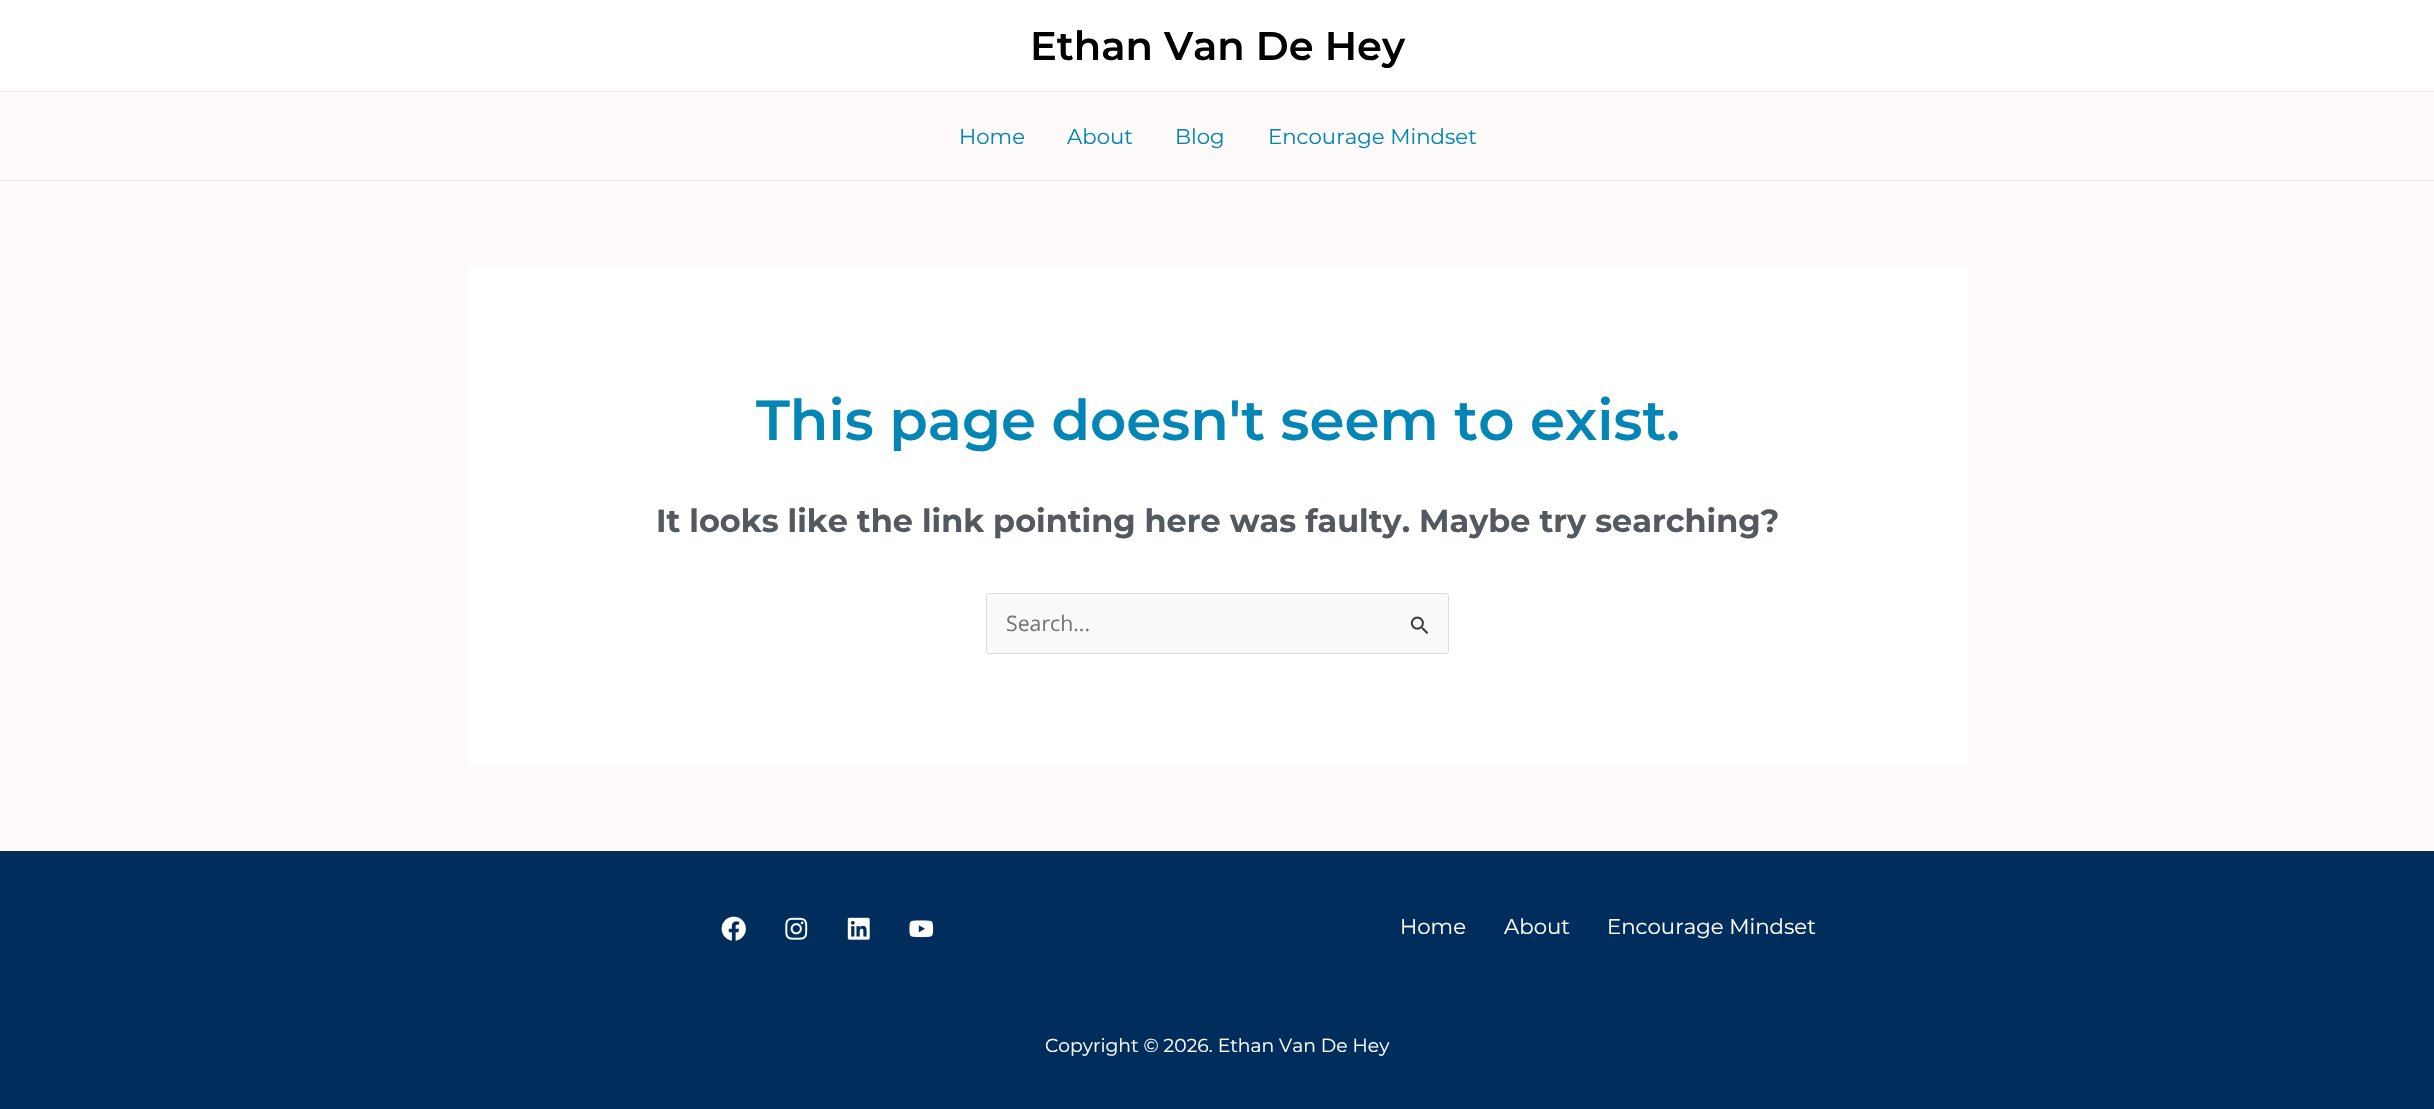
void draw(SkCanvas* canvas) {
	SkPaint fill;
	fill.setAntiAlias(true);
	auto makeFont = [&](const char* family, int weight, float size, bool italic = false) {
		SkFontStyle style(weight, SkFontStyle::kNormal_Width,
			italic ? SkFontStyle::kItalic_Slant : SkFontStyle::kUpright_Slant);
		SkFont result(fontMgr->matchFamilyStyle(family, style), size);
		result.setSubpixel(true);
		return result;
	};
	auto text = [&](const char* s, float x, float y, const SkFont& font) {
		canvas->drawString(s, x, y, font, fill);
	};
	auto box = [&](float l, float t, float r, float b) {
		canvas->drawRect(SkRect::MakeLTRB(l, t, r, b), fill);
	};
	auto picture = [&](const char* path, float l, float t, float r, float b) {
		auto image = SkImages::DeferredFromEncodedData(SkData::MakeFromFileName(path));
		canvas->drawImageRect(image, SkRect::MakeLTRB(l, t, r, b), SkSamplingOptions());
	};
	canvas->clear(0xFFFEFAFA);
	fill.setColor(0xFFFFFFFF);
	box(0, 0, 2434, 93);
	fill.setColor(0xFFEAEAEA);
	box(0, 91, 2434, 92);
	box(0, 180, 2434, 181);
	fill.setColor(0xFFFFFFFF);
	box(468, 266, 1968, 766);
	fill.setColor(0xFFFAFAFA);
	canvas->drawRoundRect(SkRect::MakeLTRB(986.5f, 593.5f, 1448.5f, 653.5f), 2, 2, fill);
	fill.setStyle(SkPaint::kStroke_Style);
	fill.setStrokeWidth(1);
	fill.setColor(0xFFDDDDDD);
	canvas->drawRoundRect(SkRect::MakeLTRB(986.5f, 593.5f, 1448.5f, 653.5f), 2, 2, fill);
	picture("image0.png", 1410, 616, 1428, 634);
	fill.setStyle(SkPaint::kFill_Style);
	fill.setColor(0xFF002D5B);
	box(0, 851, 2434, 1109);
	picture("image1.png", 721, 916, 746, 941);
	picture("image2.png", 785, 917, 808, 940);
	picture("image3.png", 847, 917, 870, 940);
	picture("image4.png", 909, 920, 934, 938);
	auto font1 = makeFont("Montserrat", 600, 40);
	fill.setColor(0xFF000000);
	text("Ethan Van De Hey", 1030, 60, font1);
	auto font2 = makeFont("Montserrat", 400, 21.25f);
	fill.setColor(0xFF0386B6);
	text("Home", 959, 144, font2);
	text("About", 1067, 144, font2);
	text("Blog", 1175, 144, font2);
	text("Encourage Mindset", 1268, 144, font2);
	auto font3 = makeFont("Montserrat", 600, 56.25f);
	text("This page doesn't seem to exist.", 756, 440, font3);
	auto font4 = makeFont("Montserrat", 700, 31.9f);
	fill.setColor(0xFF54595F);
	text("It looks like the link pointing here was faulty. Maybe try searching?", 656, 532, font4);
	auto font5 = makeFont("Open Sans", 400, 21.25f);
	fill.setColor(0xFF757575);
	text("Search...", 1006, 631, font5);
	fill.setColor(0xFFFFFFFF);
	text("Home", 1400, 934, font2);
	text("About", 1504, 934, font2);
	text("Encourage Mindset", 1607, 934, font2);
	auto font6 = makeFont("Montserrat", 400, 18.75f);
	text("Copyright © 2026. Ethan Van De Hey", 1045, 1052, font6);
}
